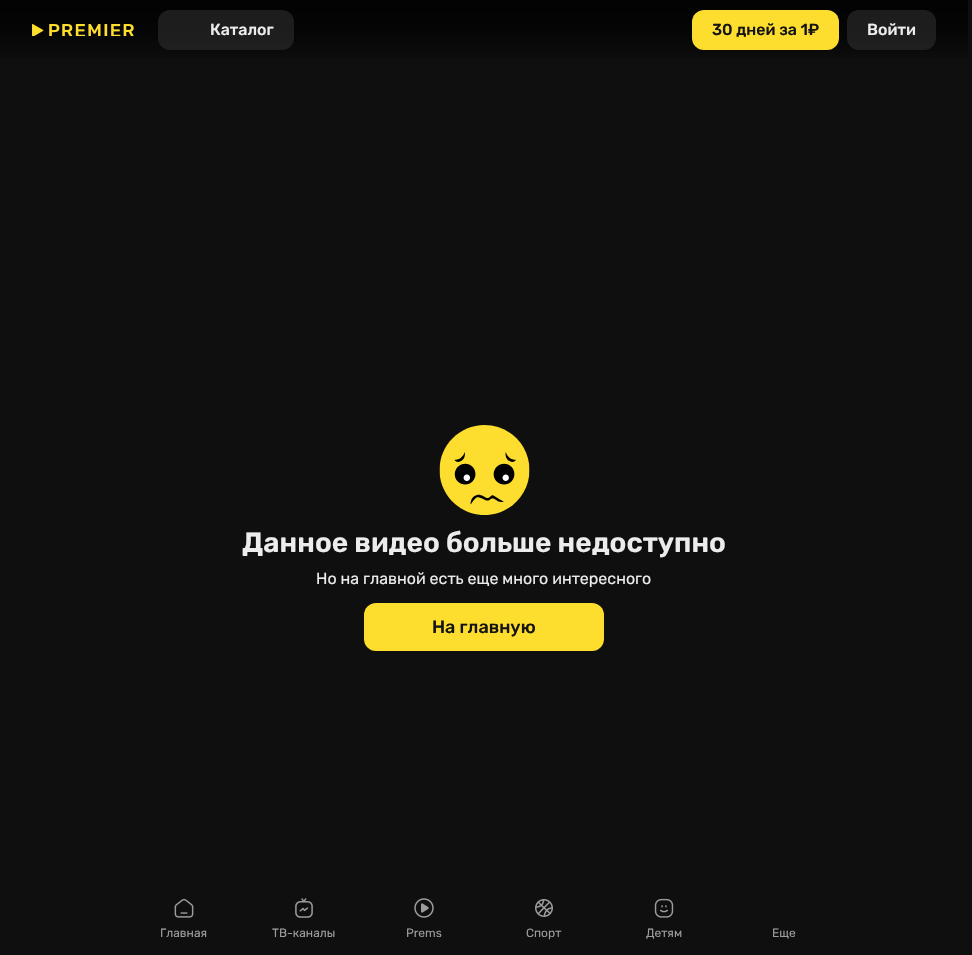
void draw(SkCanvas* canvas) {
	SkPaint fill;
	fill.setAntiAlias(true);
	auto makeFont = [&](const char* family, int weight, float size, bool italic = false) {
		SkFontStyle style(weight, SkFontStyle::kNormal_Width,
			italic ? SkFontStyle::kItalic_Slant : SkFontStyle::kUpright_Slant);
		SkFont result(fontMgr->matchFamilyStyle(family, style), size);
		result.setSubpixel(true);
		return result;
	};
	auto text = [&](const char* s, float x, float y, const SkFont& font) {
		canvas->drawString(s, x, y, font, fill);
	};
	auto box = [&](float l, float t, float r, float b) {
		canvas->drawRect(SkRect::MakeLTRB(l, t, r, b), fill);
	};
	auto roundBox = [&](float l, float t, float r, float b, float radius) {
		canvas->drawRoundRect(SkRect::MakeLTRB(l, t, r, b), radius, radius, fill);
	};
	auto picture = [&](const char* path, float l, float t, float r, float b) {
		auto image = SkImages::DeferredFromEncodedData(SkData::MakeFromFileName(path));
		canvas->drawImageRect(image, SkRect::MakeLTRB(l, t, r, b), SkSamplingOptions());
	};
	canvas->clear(0xFF0F0F10);
	{
		const SkColor colors[] = {0xFF030303, 0xFF030304, 0xFF040404, 0xFF050506, 0xFF070708, 0xFF0A0A0B, 0xFF0D0D0E};
		const float stops[] = {0, 0.15f, 0.32f, 0.47f, 0.64f, 0.82f, 1};
		const SkPoint ends[] = {{484, -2}, {484, 60}};
		fill.setShader(SkGradientShader::MakeLinear(ends, colors, stops, 7, SkTileMode::kClamp));
		fill.setAlpha(255);
	}
	box(0, 0, 968, 58);
	picture("image0.png", 32, 24, 134, 36);
	fill.setShader(nullptr);
	fill.setColor(0xA6292929);
	roundBox(158, 10, 294, 50, 12);
	fill.setColor(0xFFFDDD2D);
	roundBox(692, 10, 839, 50, 12);
	fill.setColor(0xA6292929);
	roundBox(847, 10, 936, 50, 12);
	picture("image1.png", 439, 425, 530, 515);
	fill.setColor(0xFFFDDD2D);
	roundBox(364, 603, 604, 651, 12);
	picture("image2.png", 174, 898, 194, 918);
	picture("image3.png", 295, 898, 313, 918);
	picture("image4.png", 414, 898, 434, 918);
	picture("image5.png", 535, 899, 553, 917);
	picture("image6.png", 654, 898, 674, 918);
	auto font1 = makeFont("Rubik", 500, 16);
	fill.setColor(0xFFECECEC);
	text("Каталог", 210, 35, font1);
	fill.setColor(0xFF141414);
	text("30 дней за 1₽", 712, 35, font1);
	fill.setColor(0xFFECECEC);
	text("Войти", 867, 35, font1);
	auto font2 = makeFont("Rubik", 600, 28);
	text("Данное видео больше недоступно", 242, 552, font2);
	auto font3 = makeFont("Rubik", 400, 16);
	text("Но на главной есть еще много интересного", 316, 584, font3);
	auto font4 = makeFont("Rubik", 500, 18);
	fill.setColor(0xFF141414);
	text("На главную", 432, 633, font4);
	auto font5 = makeFont("Rubik", 400, 12);
	fill.setColor(0xFF9B9B9B);
	text("Главная", 160, 937, font5);
	text("ТВ-каналы", 272, 937, font5);
	text("Prems", 406, 937, font5);
	text("Спорт", 526, 937, font5);
	text("Детям", 646, 937, font5);
	text("Еще", 772, 937, font5);
}
